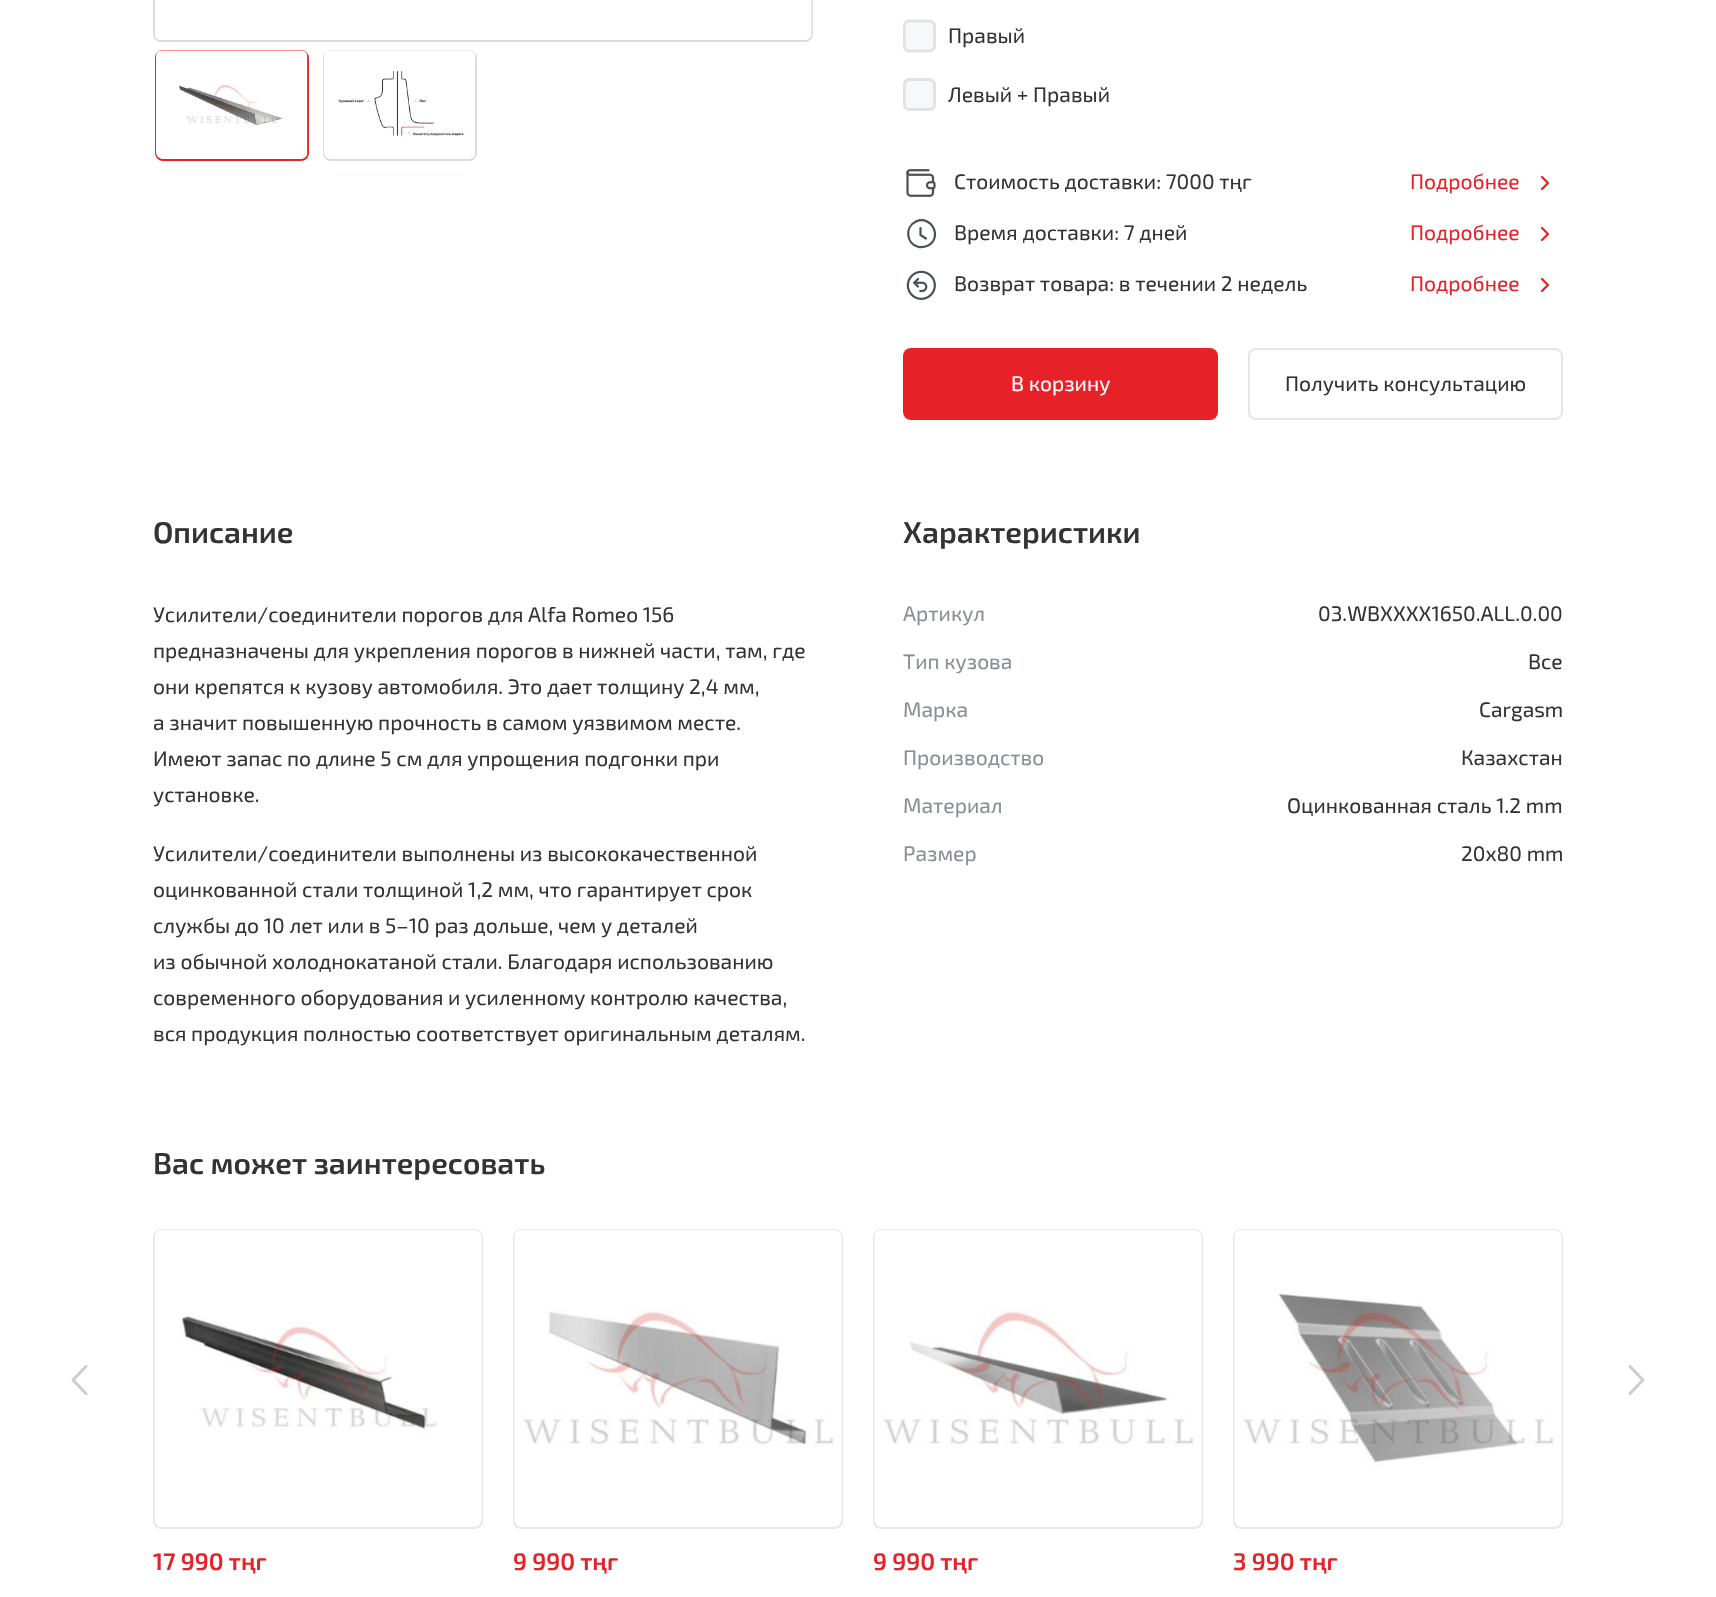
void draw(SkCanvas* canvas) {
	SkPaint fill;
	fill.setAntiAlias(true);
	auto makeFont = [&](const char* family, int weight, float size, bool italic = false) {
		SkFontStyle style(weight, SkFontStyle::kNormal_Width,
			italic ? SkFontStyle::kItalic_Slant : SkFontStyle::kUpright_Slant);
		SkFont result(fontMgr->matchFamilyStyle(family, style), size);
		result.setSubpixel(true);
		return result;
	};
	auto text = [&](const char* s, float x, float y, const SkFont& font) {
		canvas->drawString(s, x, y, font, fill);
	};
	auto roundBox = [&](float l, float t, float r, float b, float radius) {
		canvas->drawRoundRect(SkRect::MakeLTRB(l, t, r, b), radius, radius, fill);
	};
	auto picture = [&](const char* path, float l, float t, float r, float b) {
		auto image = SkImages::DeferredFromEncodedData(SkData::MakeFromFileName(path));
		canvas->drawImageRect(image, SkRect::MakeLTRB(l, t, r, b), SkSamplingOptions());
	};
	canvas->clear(0xFFFFFFFF);
	fill.setStyle(SkPaint::kStroke_Style);
	fill.setStrokeWidth(2);
	fill.setColor(0xFFD7DCDE);
	canvas->drawRoundRect(SkRect::MakeLTRB(154, -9, 812, 41), 7, 7, fill);
	picture("image0.png", 155, 0, 812, 40);
	fill.setColor(0xFFE4261D);
	canvas->drawRoundRect(SkRect::MakeLTRB(156, 51, 308, 160), 7, 7, fill);
	picture("image1.png", 156, 50, 308, 159);
	fill.setColor(0xFFD7DCDE);
	canvas->drawRoundRect(SkRect::MakeLTRB(324, 51, 476, 160), 7, 7, fill);
	picture("image2.png", 324, 50, 476, 159);
	picture("image3.png", 903, 19, 936, 53);
	picture("image4.png", 903, 78, 936, 111);
	picture("image5.png", 906, 169, 936, 197);
	fill.setStrokeWidth(2.2f);
	fill.setStrokeCap(SkPaint::kRound_Cap);
	fill.setStrokeJoin(SkPaint::kRound_Join);
	fill.setColor(0xFFE62128);
	canvas->drawPath(SkPathBuilder().moveTo(1542, 189).lineTo(1548, 183).lineTo(1542, 177).detach(), fill);
	fill.setColor(0xFF495057);
	canvas->drawPath(SkPathBuilder().moveTo(916, 221.5f).cubicTo(931.5f, 214.5f, 943, 237.5f, 928, 245.5f).cubicTo(925, 247, 921.5f, 247.5f, 918.5f, 247).cubicTo(906, 244, 904.5f, 227, 916, 221.5f).moveTo(920.5f, 228).lineTo(920.5f, 235).lineTo(926, 238.5f).detach(), fill);
	fill.setColor(0xFFE62128);
	canvas->drawPath(SkPathBuilder().moveTo(1542, 240).lineTo(1548, 234).lineTo(1542, 228).detach(), fill);
	picture("image6.png", 906, 270, 936, 300);
	canvas->drawPath(SkPathBuilder().moveTo(1542, 291).lineTo(1548, 285).lineTo(1542, 279).detach(), fill);
	fill.setStyle(SkPaint::kFill_Style);
	roundBox(903, 348, 1218, 420, 8);
	fill.setStyle(SkPaint::kStroke_Style);
	fill.setStrokeWidth(2);
	fill.setStrokeCap(SkPaint::kButt_Cap);
	fill.setStrokeJoin(SkPaint::kMiter_Join);
	fill.setColor(0xFFE5E5E5);
	canvas->drawRoundRect(SkRect::MakeLTRB(1249, 349, 1562, 419), 7, 7, fill);
	fill.setStrokeWidth(3);
	fill.setStrokeCap(SkPaint::kRound_Cap);
	fill.setStrokeJoin(SkPaint::kRound_Join);
	{
		const SkColor colors[] = {0xFFCCCCCC, 0xFFCCCCCC};
		const float stops[] = {0, 1};
		const SkPoint ends[] = {{76, 1363}, {93, 1369}};
		fill.setShader(SkGradientShader::MakeLinear(ends, colors, stops, 2, SkTileMode::kClamp));
		fill.setAlpha(255);
	}
	canvas->drawPath(SkPathBuilder().moveTo(86, 1366.5f).lineTo(73, 1380).lineTo(86, 1393.5f).detach(), fill);
	{
		const SkColor colors[] = {0xFFCCCCCC, 0xFFCCCCCC};
		const float stops[] = {0, 1};
		const SkPoint ends[] = {{1640, 1363}, {1623, 1369}};
		fill.setShader(SkGradientShader::MakeLinear(ends, colors, stops, 2, SkTileMode::kClamp));
		fill.setAlpha(255);
	}
	canvas->drawPath(SkPathBuilder().moveTo(1630, 1366.5f).lineTo(1643, 1380).lineTo(1630, 1393.5f).detach(), fill);
	fill.setStrokeWidth(2);
	fill.setStrokeCap(SkPaint::kButt_Cap);
	fill.setStrokeJoin(SkPaint::kMiter_Join);
	fill.setShader(nullptr);
	fill.setColor(0xFFE8E8E8);
	canvas->drawRoundRect(SkRect::MakeLTRB(154, 1230, 482, 1528), 7, 7, fill);
	picture("image7.png", 155, 1230, 482, 1522);
	canvas->drawRoundRect(SkRect::MakeLTRB(514, 1230, 842, 1528), 7, 7, fill);
	picture("image8.png", 514, 1230, 842, 1522);
	canvas->drawRoundRect(SkRect::MakeLTRB(874, 1230, 1202, 1528), 7, 7, fill);
	picture("image9.png", 874, 1230, 1202, 1522);
	canvas->drawRoundRect(SkRect::MakeLTRB(1234, 1230, 1562, 1528), 7, 7, fill);
	picture("image10.png", 1234, 1230, 1562, 1522);
	auto font1 = makeFont("Exo 2", 400, 21);
	fill.setStyle(SkPaint::kFill_Style);
	fill.setColor(0xFF333333);
	text("Правый", 948, 43, font1);
	text("Левый + Правый", 948, 102, font1);
	text("Стоимость доставки: 7000 тңг", 954, 189, font1);
	fill.setColor(0xFFE62128);
	text("Подробнее", 1410, 189, font1);
	fill.setColor(0xFF333333);
	text("Время доставки: 7 дней", 954, 240, font1);
	fill.setColor(0xFFE62128);
	text("Подробнее", 1410, 240, font1);
	fill.setColor(0xFF333333);
	text("Возврат товара: в течении 2 недель", 954, 291, font1);
	fill.setColor(0xFFE62128);
	text("Подробнее", 1410, 291, font1);
	fill.setColor(0xFFFFFFFF);
	text("В корзину", 1011, 391, font1);
	fill.setColor(0xFF333333);
	text("Получить консультацию", 1285, 391, font1);
	auto font2 = makeFont("Exo 2", 600, 30);
	text("Описание", 153, 543, font2);
	text("Усилители/соединители порогов для Alfa Romeo 156", 153, 622, font1);
	text("предназначены для укрепления порогов в нижней части, там, где", 153, 658, font1);
	text("они крепятся к кузову автомобиля. Это дает толщину 2,4 мм,", 153, 694, font1);
	text("а значит повышенную прочность в самом уязвимом месте.", 153, 730, font1);
	text("Имеют запас по длине 5 см для упрощения подгонки при", 153, 766, font1);
	text("установке.", 153, 802, font1);
	text("Усилители/соединители выполнены из высококачественной", 153, 861, font1);
	text("оцинкованной стали толщиной 1,2 мм, что гарантирует срок", 153, 897, font1);
	text("службы до 10 лет или в 5–10 раз дольше, чем у деталей", 153, 933, font1);
	text("из обычной холоднокатаной стали. Благодаря использованию", 153, 969, font1);
	text("современного оборудования и усиленному контролю качества,", 153, 1005, font1);
	text("вся продукция полностью соответствует оригинальным деталям.", 153, 1041, font1);
	text("Характеристики", 903, 543, font2);
	fill.setColor(0xFF868E96);
	text("Артикул", 903, 621, font1);
	fill.setColor(0xFF333333);
	text("03.WBXXXX1650.ALL.0.00", 1318, 621, font1);
	fill.setColor(0xFF868E96);
	text("Тип кузова", 903, 669, font1);
	fill.setColor(0xFF333333);
	text("Все", 1528, 669, font1);
	fill.setColor(0xFF868E96);
	text("Марка", 903, 717, font1);
	fill.setColor(0xFF333333);
	text("Cargasm", 1479, 717, font1);
	fill.setColor(0xFF868E96);
	text("Производство", 903, 765, font1);
	fill.setColor(0xFF333333);
	text("Казахстан", 1461, 765, font1);
	fill.setColor(0xFF868E96);
	text("Материал", 903, 813, font1);
	fill.setColor(0xFF333333);
	text("Оцинкованная сталь 1.2 mm", 1287, 813, font1);
	fill.setColor(0xFF868E96);
	text("Размер", 903, 861, font1);
	fill.setColor(0xFF333333);
	text("20x80 mm", 1461, 861, font1);
	text("Вас может заинтересовать", 153, 1174, font2);
	auto font3 = makeFont("Exo 2", 600, 24);
	fill.setColor(0xFFE62128);
	text("17 990 тңг", 153, 1570, font3);
	text("9 990 тңг", 513, 1570, font3);
	text("9 990 тңг", 873, 1570, font3);
	text("3 990 тңг", 1233, 1570, font3);
}
